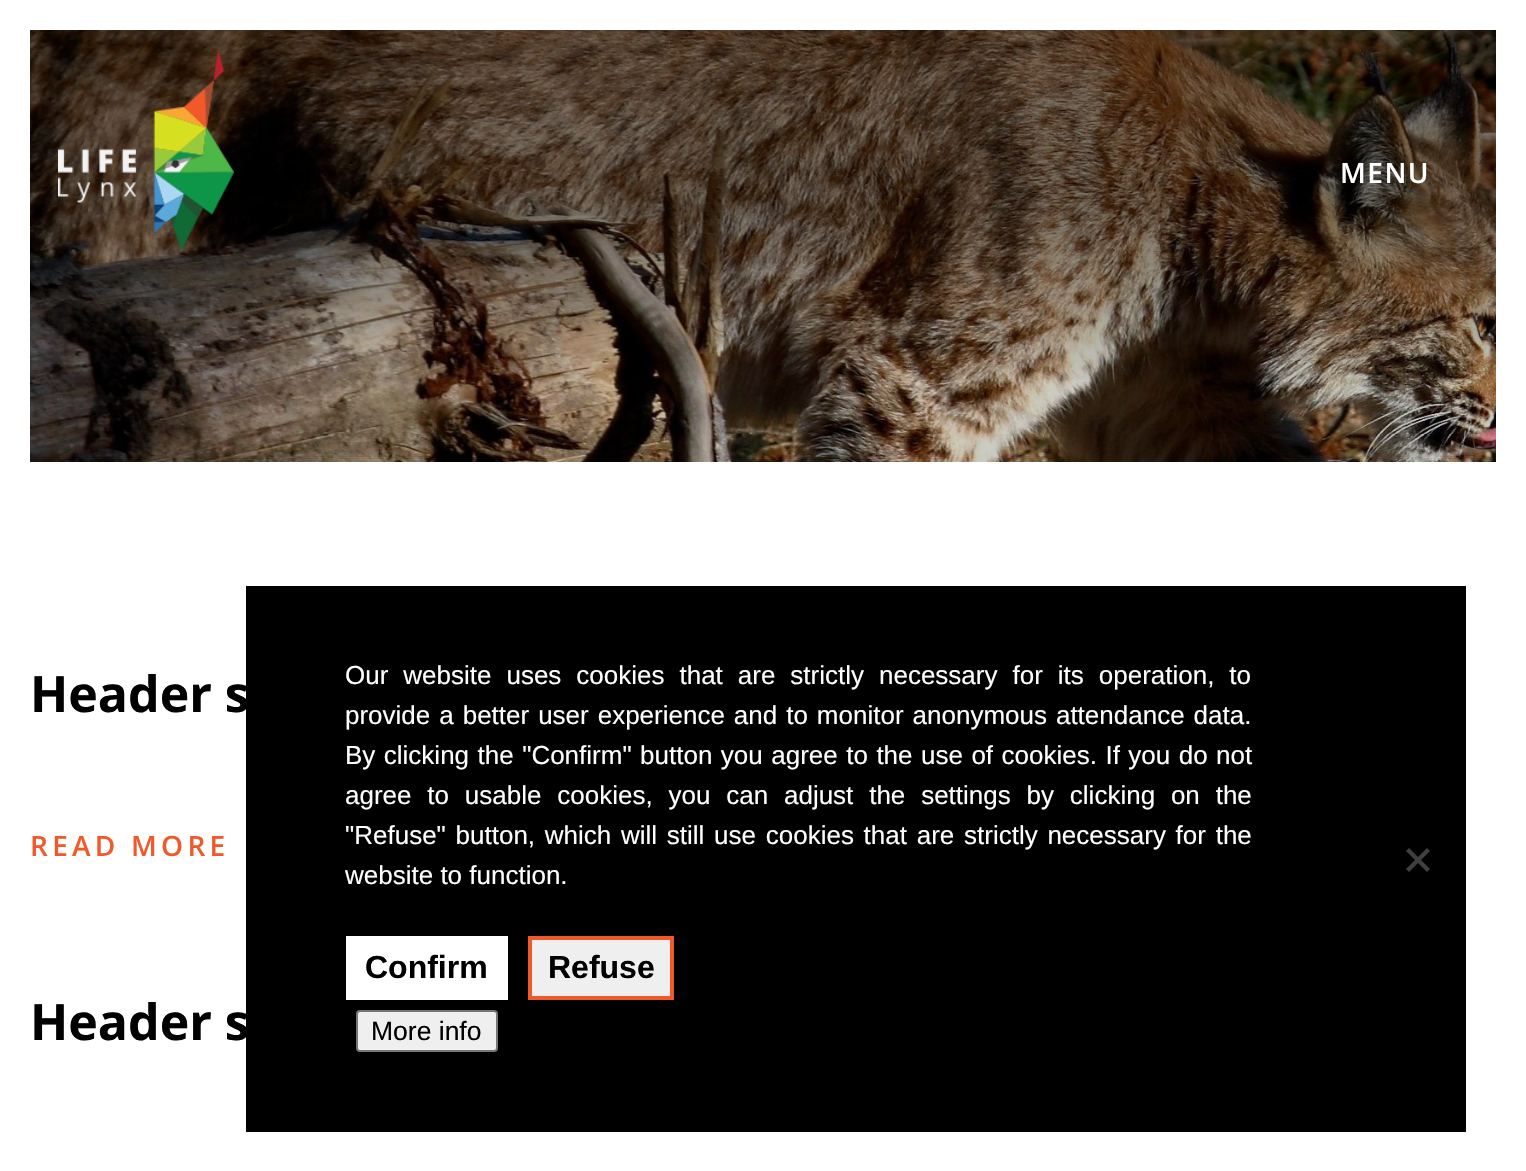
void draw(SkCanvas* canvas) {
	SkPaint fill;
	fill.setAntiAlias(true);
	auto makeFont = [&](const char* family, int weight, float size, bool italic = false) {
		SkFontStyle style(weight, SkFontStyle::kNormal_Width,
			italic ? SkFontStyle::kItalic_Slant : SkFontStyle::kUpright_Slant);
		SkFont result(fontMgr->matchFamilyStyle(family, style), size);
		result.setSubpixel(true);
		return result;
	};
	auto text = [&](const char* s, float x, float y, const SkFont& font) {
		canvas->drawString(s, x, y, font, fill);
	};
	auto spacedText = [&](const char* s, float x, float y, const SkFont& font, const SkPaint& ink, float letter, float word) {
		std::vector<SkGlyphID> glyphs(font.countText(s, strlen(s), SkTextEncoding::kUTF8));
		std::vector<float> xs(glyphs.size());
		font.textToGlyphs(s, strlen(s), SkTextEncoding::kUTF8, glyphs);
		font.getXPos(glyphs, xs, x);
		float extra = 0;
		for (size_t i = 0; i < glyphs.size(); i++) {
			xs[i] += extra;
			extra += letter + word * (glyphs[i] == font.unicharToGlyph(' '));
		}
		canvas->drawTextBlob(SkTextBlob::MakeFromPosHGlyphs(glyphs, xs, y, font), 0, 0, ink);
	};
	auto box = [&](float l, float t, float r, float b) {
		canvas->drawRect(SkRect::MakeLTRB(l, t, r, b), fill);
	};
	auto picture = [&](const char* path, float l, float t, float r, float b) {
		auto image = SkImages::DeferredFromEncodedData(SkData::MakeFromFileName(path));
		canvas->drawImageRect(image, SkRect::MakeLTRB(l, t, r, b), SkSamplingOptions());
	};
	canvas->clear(0xFFFFFFFF);
	picture("image0.png", 30, 30, 1496, 462);
	{
		const SkColor colors[] = {0x66000000, 0x00000000};
		const float stops[] = {0.3f, 0.6f};
		const SkPoint ends[] = {{763, 30}, {763, 630}};
		fill.setShader(SkGradientShader::MakeLinear(ends, colors, stops, 2, SkTileMode::kClamp));
		fill.setAlpha(255);
	}
	box(30, 30, 1496, 380);
	picture("image1.png", 58, 50, 234, 250);
	fill.setShader(nullptr);
	fill.setColor(0xFF000000);
	box(246, 586, 1466, 1132);
	fill.setColor(0xFF404040);
	canvas->drawPath(SkPathBuilder().moveTo(1427, 848).lineTo(1430, 851).lineTo(1409, 872).lineTo(1406, 869).close().detach(), fill);
	canvas->drawPath(SkPathBuilder().moveTo(1406, 851).lineTo(1409, 848).lineTo(1430, 869).lineTo(1427, 872).close().detach(), fill);
	fill.setColor(0xFFFFFFFF);
	box(346, 936, 508, 1000);
	fill.setColor(0xFFEFEFEF);
	canvas->drawRect(SkRect::MakeLTRB(530, 938, 672, 998), fill);
	fill.setStyle(SkPaint::kStroke_Style);
	fill.setStrokeWidth(4);
	fill.setColor(0xFFF1592B);
	canvas->drawRect(SkRect::MakeLTRB(530, 938, 672, 998), fill);
	fill.setStyle(SkPaint::kFill_Style);
	fill.setColor(0xFFEFEFEF);
	canvas->drawRoundRect(SkRect::MakeLTRB(357, 1011, 497, 1051), 3, 3, fill);
	fill.setStyle(SkPaint::kStroke_Style);
	fill.setStrokeWidth(2);
	fill.setColor(0xFF767676);
	canvas->drawRoundRect(SkRect::MakeLTRB(357, 1011, 497, 1051), 3, 3, fill);
	auto font1 = makeFont("Open Sans", 600, 28);
	fill.setStyle(SkPaint::kFill_Style);
	fill.setColor(0xFFFFFFFF);
	spacedText("MENU", 1340, 183, font1, fill, 1.5f, 0);
	auto font2 = makeFont("Open Sans", 700, 50);
	fill.setColor(0xFF000000);
	text("Header s", 30, 712, font2);
	fill.setColor(0xFFF1592B);
	spacedText("READ MORE", 30, 856, font1, fill, 4.25f, 0);
	fill.setColor(0xFF000000);
	text("Header s", 30, 1040, font2);
	auto font3 = makeFont("Liberation Sans", 400, 26);
	fill.setColor(0xFFFFFFFF);
	spacedText("Our website uses cookies that are strictly necessary for its operation, to", 345, 684, font3, fill, 0, 7.75f);
	spacedText("provide a better user experience and to monitor anonymous attendance data.", 345, 724, font3, fill, 0, 1.75f);
	spacedText("By clicking the \"Confirm\" button you agree to the use of cookies. If you do not", 345, 764, font3, fill, 0, 1.25f);
	spacedText("agree to usable cookies, you can adjust the settings by clicking on the", 345, 804, font3, fill, 0, 8.6f);
	spacedText("\"Refuse\" button, which will still use cookies that are strictly necessary for the", 345, 844, font3, fill, 0, 2.5f);
	text("website to function.", 345, 884, font3);
	auto font4 = makeFont("Liberation Sans", 700, 32);
	fill.setColor(0xFF000000);
	text("Confirm", 365, 978, font4);
	text("Refuse", 548, 978, font4);
	auto font5 = makeFont("Liberation Sans", 400, 26.5f);
	text("More info", 371, 1040, font5);
}
